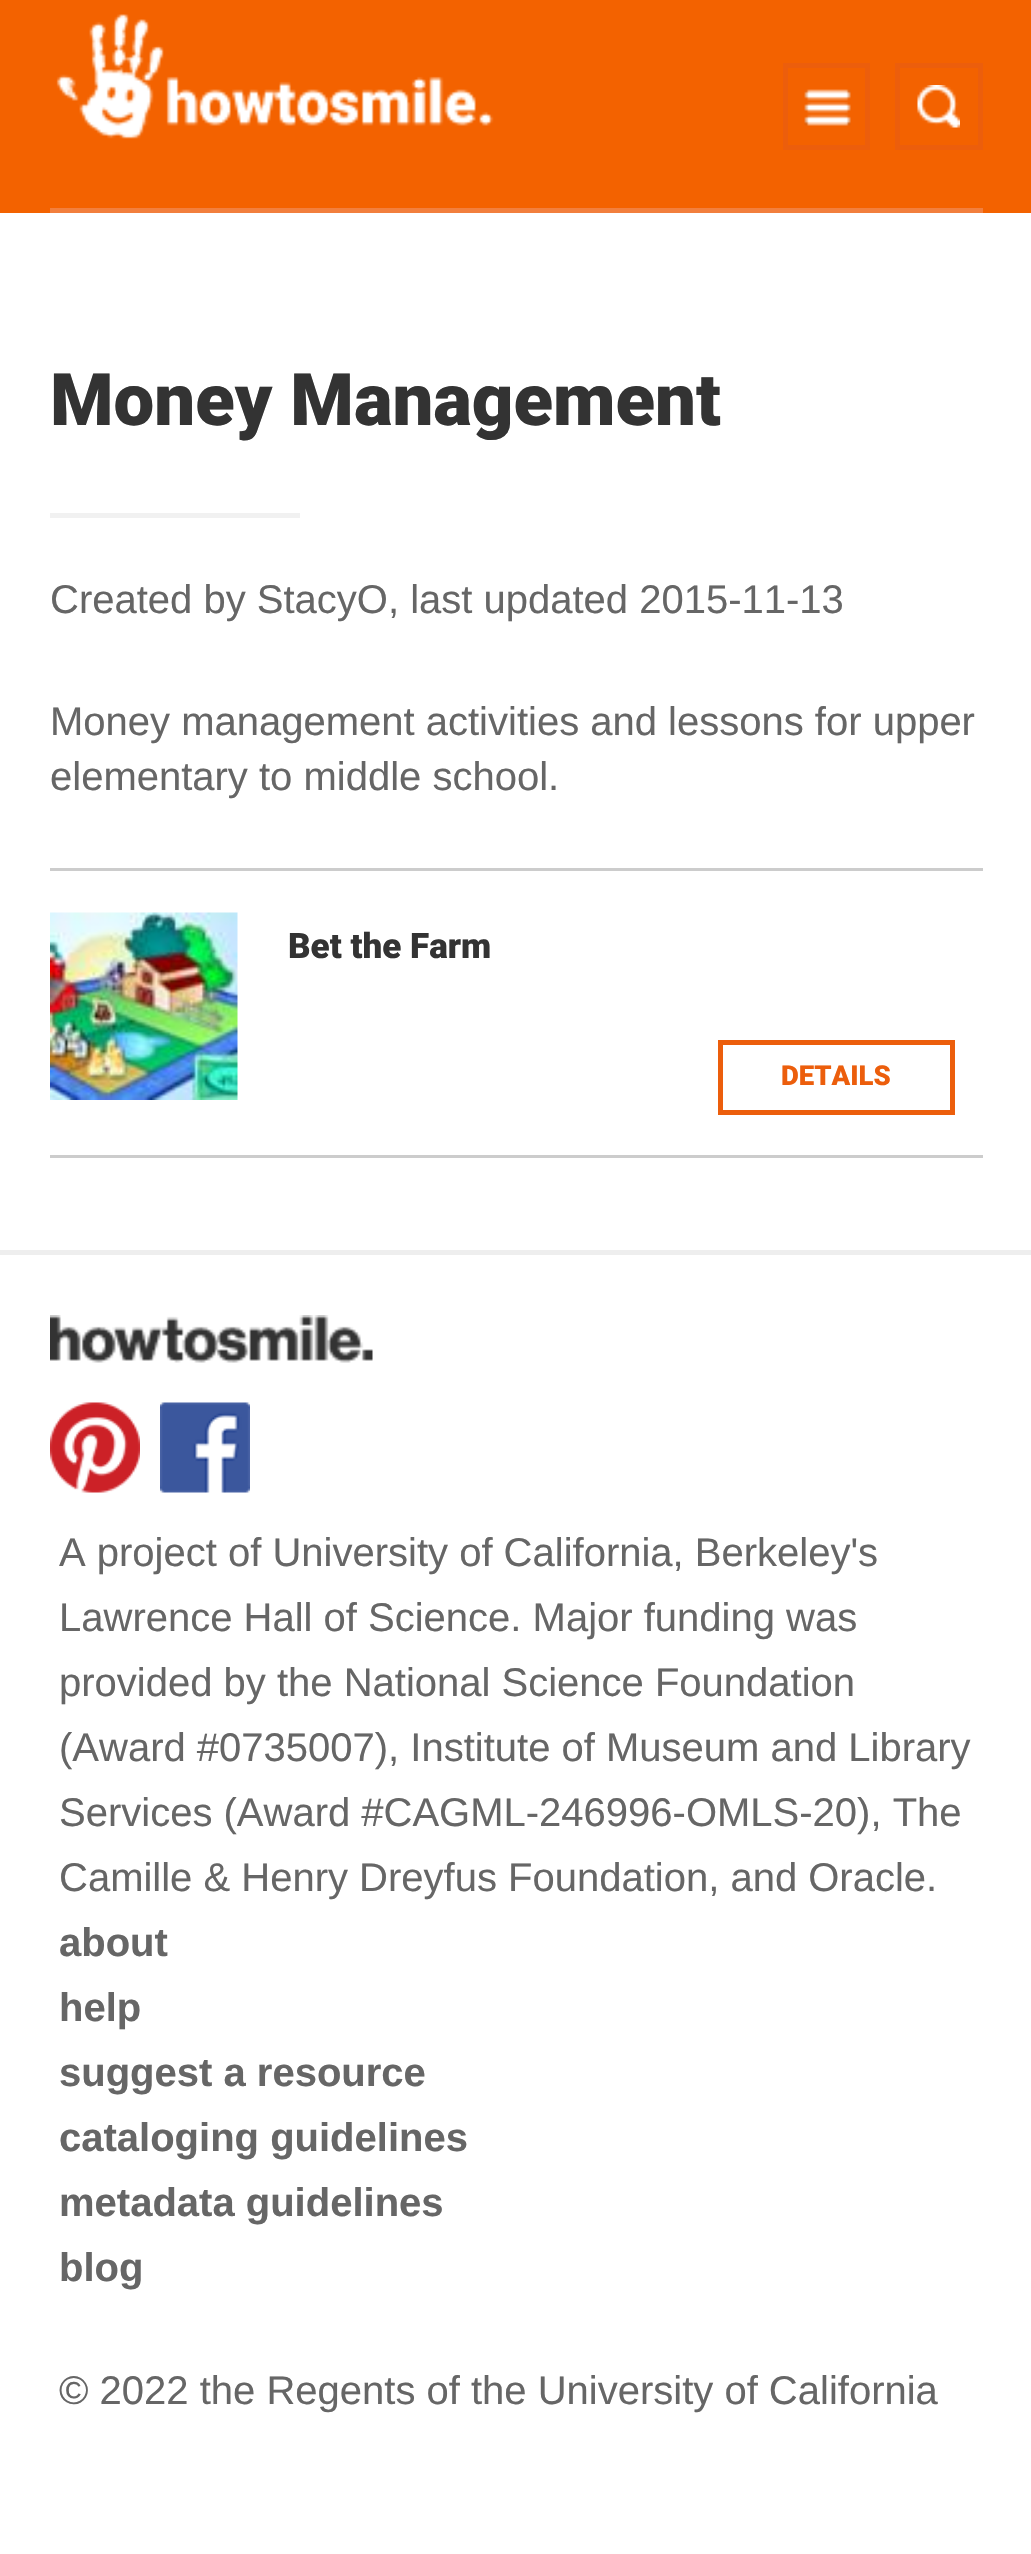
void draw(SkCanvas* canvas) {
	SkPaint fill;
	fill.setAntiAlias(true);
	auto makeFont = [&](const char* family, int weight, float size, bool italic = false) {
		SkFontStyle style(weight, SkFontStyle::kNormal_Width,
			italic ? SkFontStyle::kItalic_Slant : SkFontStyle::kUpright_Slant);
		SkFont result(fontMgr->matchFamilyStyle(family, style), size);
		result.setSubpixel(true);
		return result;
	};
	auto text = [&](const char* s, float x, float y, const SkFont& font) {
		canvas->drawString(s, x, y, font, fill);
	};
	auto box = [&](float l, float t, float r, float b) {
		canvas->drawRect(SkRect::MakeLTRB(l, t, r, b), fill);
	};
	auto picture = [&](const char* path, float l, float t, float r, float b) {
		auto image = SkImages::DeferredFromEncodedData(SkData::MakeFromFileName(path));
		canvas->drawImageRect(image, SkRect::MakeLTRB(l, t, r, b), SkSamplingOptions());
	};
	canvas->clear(0xFFFFFFFF);
	fill.setColor(0xFFF36200);
	box(0, 0, 1031, 213);
	picture("image0.png", 56, 14, 494, 139);
	picture("image1.png", 804, 89, 851, 126);
	fill.setStyle(SkPaint::kStroke_Style);
	fill.setStrokeWidth(5);
	fill.setColor(0xFFEC5E0C);
	canvas->drawRect(SkRect::MakeLTRB(785.5f, 65.5f, 867.5f, 147.5f), fill);
	picture("image2.png", 917, 85, 960, 128);
	canvas->drawRect(SkRect::MakeLTRB(897.5f, 65.5f, 980.5f, 147.5f), fill);
	fill.setStyle(SkPaint::kFill_Style);
	fill.setColor(0xFFF27F3D);
	box(50, 208, 983, 213);
	fill.setColor(0xFFF1F1F1);
	box(50, 513, 300, 518);
	fill.setColor(0xFFCCCCCC);
	box(50, 868, 983, 871);
	picture("image3.png", 50, 912, 238, 1100);
	fill.setStyle(SkPaint::kStroke_Style);
	fill.setColor(0xFFEC5E0C);
	canvas->drawRect(SkRect::MakeLTRB(720.5f, 1042.5f, 952.5f, 1112.5f), fill);
	fill.setStyle(SkPaint::kFill_Style);
	fill.setColor(0xFFCCCCCC);
	box(50, 1155, 983, 1158);
	fill.setColor(0xFFEEEEEE);
	box(0, 1250, 1031, 1255);
	picture("image4.png", 50, 1315, 373, 1363);
	picture("image5.png", 50, 1402, 140, 1493);
	picture("image6.png", 160, 1402, 250, 1493);
	auto font1 = makeFont("Roboto", 900, 72.5f);
	fill.setColor(0xFF333333);
	text("Money Management", 50, 425, font1);
	auto font2 = makeFont("Liberation Sans", 400, 40);
	fill.setColor(0xFF666666);
	text("Created by StacyO, last updated 2015-11-13", 50, 613, font2);
	text("Money management activities and lessons for upper", 50, 735, font2);
	text("elementary to middle school.", 50, 790, font2);
	auto font3 = makeFont("Roboto", 900, 35);
	fill.setColor(0xFF333333);
	text("Bet the Farm", 288, 958, font3);
	auto font4 = makeFont("Roboto", 900, 27.5f);
	fill.setColor(0xFFEC5E0C);
	text("DETAILS", 781, 1085, font4);
	fill.setColor(0xFF666666);
	text("A project of University of California, Berkeley's", 59, 1566, font2);
	text("Lawrence Hall of Science. Major funding was", 59, 1631, font2);
	text("provided by the National Science Foundation", 59, 1696, font2);
	text("(Award #0735007), Institute of Museum and Library", 59, 1761, font2);
	text("Services (Award #CAGML-246996-OMLS-20), The", 59, 1826, font2);
	text("Camille & Henry Dreyfus Foundation, and Oracle.", 59, 1891, font2);
	auto font5 = makeFont("Liberation Sans", 700, 40);
	text("about", 59, 1956, font5);
	text("help", 59, 2021, font5);
	text("suggest a resource", 59, 2086, font5);
	text("cataloging guidelines", 59, 2151, font5);
	text("metadata guidelines", 59, 2216, font5);
	text("blog", 59, 2281, font5);
	text("© 2022 the Regents of the University of California", 59, 2404, font2);
}
